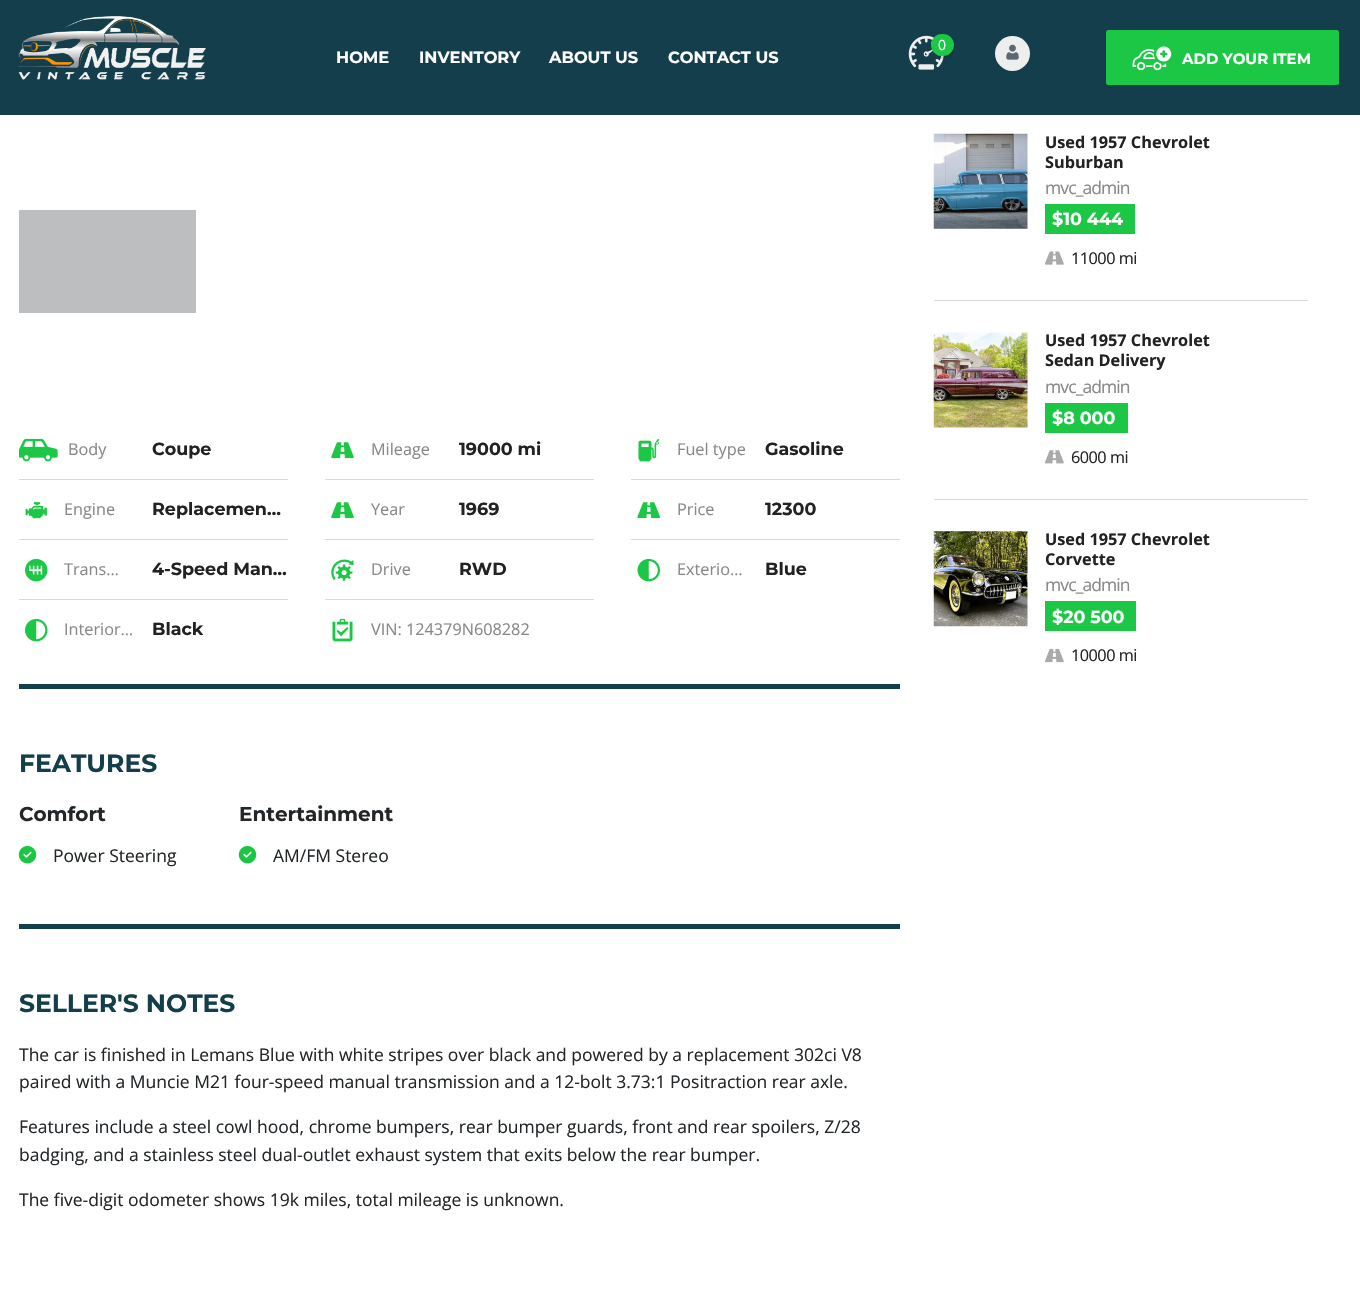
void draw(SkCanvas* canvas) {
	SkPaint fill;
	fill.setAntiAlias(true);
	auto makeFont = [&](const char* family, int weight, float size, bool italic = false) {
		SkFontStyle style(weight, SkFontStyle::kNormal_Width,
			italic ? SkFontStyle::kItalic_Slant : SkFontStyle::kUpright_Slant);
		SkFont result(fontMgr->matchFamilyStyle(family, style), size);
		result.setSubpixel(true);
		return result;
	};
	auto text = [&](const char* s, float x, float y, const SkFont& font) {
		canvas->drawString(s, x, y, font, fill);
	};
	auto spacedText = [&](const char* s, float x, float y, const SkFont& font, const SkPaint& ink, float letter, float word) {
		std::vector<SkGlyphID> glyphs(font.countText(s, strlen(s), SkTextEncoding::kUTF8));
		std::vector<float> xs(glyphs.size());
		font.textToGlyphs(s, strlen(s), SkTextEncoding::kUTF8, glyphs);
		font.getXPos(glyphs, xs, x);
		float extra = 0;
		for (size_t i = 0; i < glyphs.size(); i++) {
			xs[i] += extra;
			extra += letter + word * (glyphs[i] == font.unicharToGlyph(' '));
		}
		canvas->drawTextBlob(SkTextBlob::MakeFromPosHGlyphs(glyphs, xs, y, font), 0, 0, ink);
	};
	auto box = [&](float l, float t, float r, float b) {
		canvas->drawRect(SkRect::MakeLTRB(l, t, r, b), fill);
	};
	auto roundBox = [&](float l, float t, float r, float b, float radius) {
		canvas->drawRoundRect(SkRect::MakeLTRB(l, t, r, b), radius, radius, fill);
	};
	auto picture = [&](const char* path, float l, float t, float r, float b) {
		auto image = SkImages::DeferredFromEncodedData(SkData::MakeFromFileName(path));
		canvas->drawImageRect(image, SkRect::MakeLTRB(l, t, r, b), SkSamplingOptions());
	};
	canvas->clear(0xFFFFFFFF);
	fill.setColor(0xFF153E4D);
	box(0, 0, 1360, 115);
	picture("image0.png", 18, 16, 206, 80);
	picture("image1.png", 908, 35, 944, 70);
	fill.setColor(0x24000000);
	canvas->drawPath(SkPathBuilder().moveTo(934, 52).cubicTo(938.5f, 63.5f, 955.5f, 60, 955, 47).cubicTo(955, 44.5f, 954, 42, 952.5f, 40.5f).cubicTo(958, 52, 942, 62, 934, 52).close().detach(), fill);
	fill.setColor(0xFF1BC744);
	roundBox(931, 34, 954, 56, 11);
	fill.setColor(0xFFEEEEEE);
	canvas->drawCircle(1012.5f, 53.5f, 17.5f, fill);
	picture("image2.png", 1006, 44, 1019, 60);
	fill.setColor(0xFF1BC744);
	roundBox(1106, 30, 1339, 85, 2.5f);
	picture("image3.png", 1132, 46, 1172, 71);
	fill.setColor(0xFFBDBEBF);
	box(19, 210, 196, 313);
	fill.setColor(0xFF153E4B);
	box(19, 684, 900, 689);
	picture("image4.png", 19, 438, 58, 462);
	picture("image5.png", 331, 442, 354, 459);
	picture("image6.png", 638, 439, 659, 462);
	fill.setColor(0xFFD5D9E0);
	box(19, 479, 288, 480);
	picture("image7.png", 25, 502, 47, 519);
	box(325, 479, 594, 480);
	picture("image5.png", 331, 502, 354, 519);
	box(631, 479, 900, 480);
	picture("image8.png", 637, 502, 660, 519);
	box(19, 539, 288, 540);
	picture("image9.png", 25, 558, 48, 582);
	box(325, 539, 594, 540);
	picture("image10.png", 331, 559, 354, 581);
	box(631, 539, 900, 540);
	picture("image11.png", 637, 558, 660, 582);
	box(19, 599, 288, 600);
	picture("image12.png", 25, 618, 48, 642);
	box(325, 599, 594, 600);
	picture("image13.png", 332, 618, 353, 642);
	fill.setColor(0xFF153E4B);
	box(19, 924, 900, 929);
	picture("image14.png", 18, 845, 37, 864);
	picture("image14.png", 238, 845, 257, 864);
	picture("image15.png", 933, 133, 1028, 229);
	fill.setColor(0xFF1BC744);
	box(1045, 204, 1135, 234);
	picture("image16.png", 1045, 251, 1064, 265);
	fill.setColor(0xFFD5D9E0);
	box(934, 300, 1308, 301);
	picture("image17.png", 933, 332, 1028, 428);
	fill.setColor(0xFF1BC744);
	box(1045, 403, 1128, 433);
	picture("image18.png", 1045, 450, 1064, 464);
	fill.setColor(0xFFD5D9E0);
	box(934, 499, 1308, 500);
	picture("image19.png", 933, 531, 1028, 627);
	fill.setColor(0xFF1BC744);
	box(1045, 601, 1136, 631);
	picture("image20.png", 1045, 648, 1064, 663);
	auto font1 = makeFont("Montserrat", 700, 16.25f);
	fill.setColor(0xFFFFFFFF);
	text("HOME", 336, 63, font1);
	text("INVENTORY", 419, 63, font1);
	text("ABOUT US", 549, 63, font1);
	text("CONTACT US", 668, 63, font1);
	auto font2 = makeFont("Open Sans", 400, 14);
	text("0", 938, 50, font2);
	auto font3 = makeFont("Montserrat", 700, 15);
	text("ADD YOUR ITEM", 1182, 64, font3);
	auto font4 = makeFont("Open Sans", 400, 16.25f);
	fill.setColor(0xFF888888);
	text("Body", 68, 455, font4);
	auto font5 = makeFont("Montserrat", 700, 17.5f);
	fill.setColor(0xFF222222);
	text("Coupe", 152, 455, font5);
	fill.setColor(0xFF888888);
	text("Mileage", 371, 455, font4);
	fill.setColor(0xFF222222);
	text("19000 mi", 459, 455, font5);
	fill.setColor(0xFF888888);
	text("Fuel type", 677, 455, font4);
	fill.setColor(0xFF222222);
	text("Gasoline", 765, 455, font5);
	fill.setColor(0xFF888888);
	text("Engine", 64, 515, font4);
	fill.setColor(0xFF222222);
	text("Replacemen…", 152, 515, font5);
	fill.setColor(0xFF888888);
	text("Year", 371, 515, font4);
	fill.setColor(0xFF222222);
	text("1969", 459, 515, font5);
	fill.setColor(0xFF888888);
	text("Price", 677, 515, font4);
	fill.setColor(0xFF222222);
	text("12300", 765, 515, font5);
	fill.setColor(0xFF888888);
	text("Trans…", 64, 575, font4);
	fill.setColor(0xFF222222);
	text("4-Speed Man…", 152, 575, font5);
	fill.setColor(0xFF888888);
	text("Drive", 371, 575, font4);
	fill.setColor(0xFF222222);
	text("RWD", 459, 575, font5);
	fill.setColor(0xFF888888);
	text("Exterio…", 677, 575, font4);
	fill.setColor(0xFF222222);
	text("Blue", 765, 575, font5);
	fill.setColor(0xFF888888);
	text("Interior…", 64, 635, font4);
	fill.setColor(0xFF222222);
	text("Black", 152, 635, font5);
	fill.setColor(0xFF888888);
	text("VIN: 124379N608282", 371, 635, font4);
	auto font6 = makeFont("Montserrat", 700, 25);
	fill.setColor(0xFF153E4B);
	text("FEATURES", 19, 772, font6);
	auto font7 = makeFont("Montserrat", 700, 20);
	fill.setColor(0xFF232628);
	text("Comfort", 19, 821, font7);
	auto font8 = makeFont("Open Sans", 400, 17.5f);
	text("Power Steering", 53, 862, font8);
	text("Entertainment", 239, 821, font7);
	text("AM/FM Stereo", 273, 862, font8);
	fill.setColor(0xFF153E4B);
	text("SELLER'S NOTES", 19, 1012, font6);
	fill.setColor(0xFF232628);
	text("The car is finished in Lemans Blue with white stripes over black and powered by a replacement 302ci V8", 19, 1061, font8);
	text("paired with a Muncie M21 four-speed manual transmission and a 12-bolt 3.73:1 Positraction rear axle.", 19, 1088, font8);
	text("Features include a steel cowl hood, chrome bumpers, rear bumper guards, front and rear spoilers, Z/28", 19, 1133, font8);
	text("badging, and a stainless steel dual-outlet exhaust system that exits below the rear bumper.", 19, 1161, font8);
	text("The five-digit odometer shows 19k miles, total mileage is unknown.", 19, 1206, font8);
	auto font9 = makeFont("Open Sans", 700, 16.25f);
	fill.setColor(0xFF222222);
	text("Used 1957 Chevrolet", 1045, 148, font9);
	text("Suburban", 1045, 168, font9);
	fill.setColor(0xFF888888);
	spacedText("mvc_admin", 1045, 194, font8, fill, -0.9f, 0);
	fill.setColor(0xFFFFFFFF);
	text("$10 444", 1052, 225, font5);
	fill.setColor(0xFF222222);
	spacedText("11000 mi", 1071, 264, font4, fill, -0.5f, 0);
	text("Used 1957 Chevrolet", 1045, 346, font9);
	text("Sedan Delivery", 1045, 366, font9);
	fill.setColor(0xFF888888);
	spacedText("mvc_admin", 1045, 393, font8, fill, -0.9f, 0);
	fill.setColor(0xFFFFFFFF);
	text("$8 000", 1052, 424, font5);
	fill.setColor(0xFF222222);
	spacedText("6000 mi", 1071, 463, font4, fill, -0.5f, 0);
	text("Used 1957 Chevrolet", 1045, 545, font9);
	text("Corvette", 1045, 565, font9);
	fill.setColor(0xFF888888);
	spacedText("mvc_admin", 1045, 591, font8, fill, -0.9f, 0);
	fill.setColor(0xFFFFFFFF);
	text("$20 500", 1052, 623, font5);
	fill.setColor(0xFF222222);
	spacedText("10000 mi", 1071, 661, font4, fill, -0.5f, 0);
}
